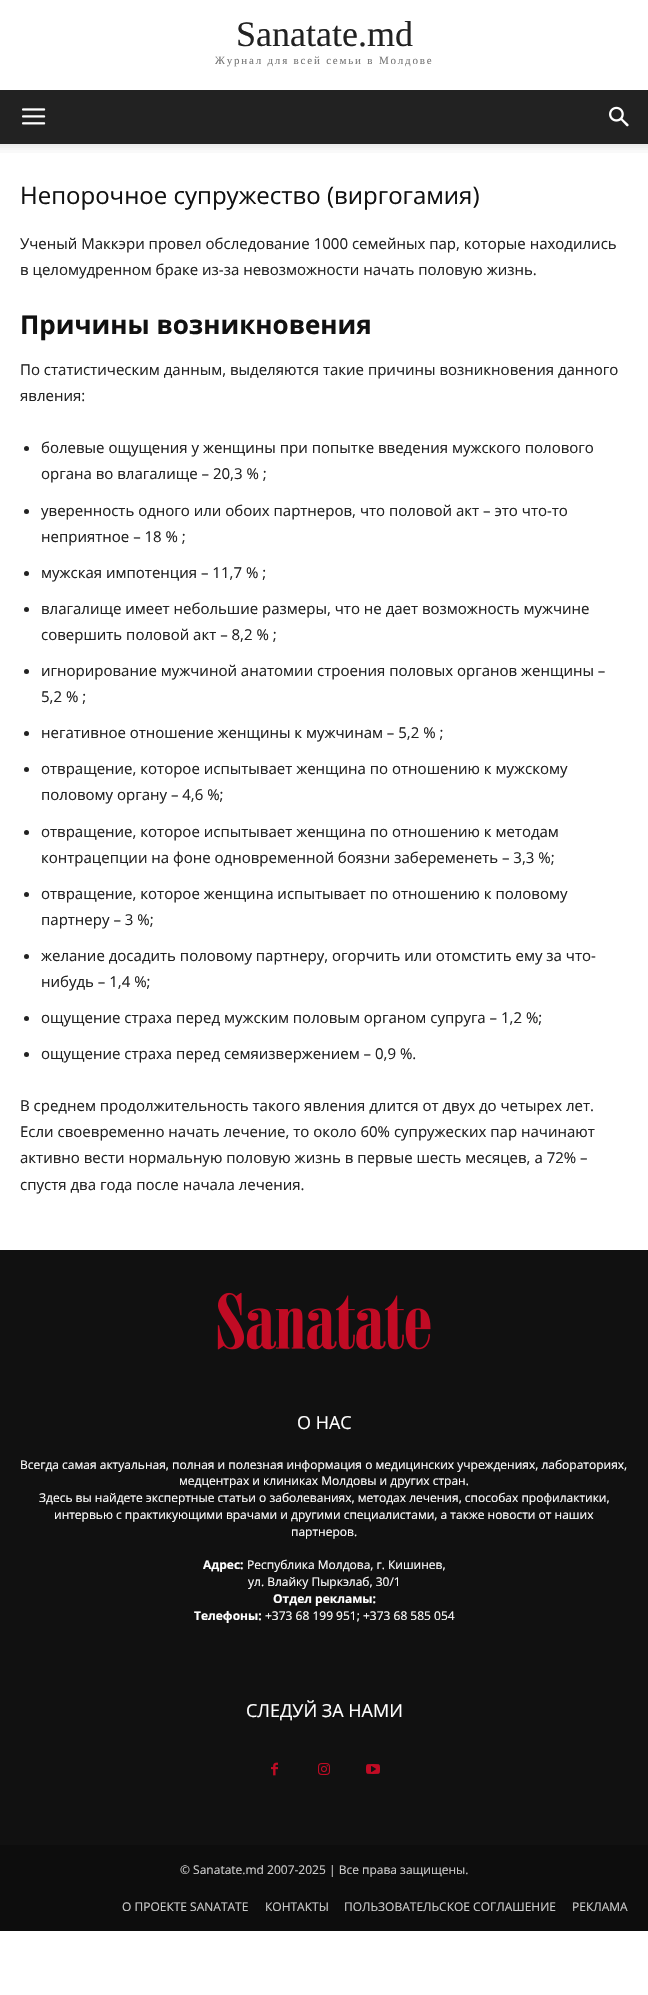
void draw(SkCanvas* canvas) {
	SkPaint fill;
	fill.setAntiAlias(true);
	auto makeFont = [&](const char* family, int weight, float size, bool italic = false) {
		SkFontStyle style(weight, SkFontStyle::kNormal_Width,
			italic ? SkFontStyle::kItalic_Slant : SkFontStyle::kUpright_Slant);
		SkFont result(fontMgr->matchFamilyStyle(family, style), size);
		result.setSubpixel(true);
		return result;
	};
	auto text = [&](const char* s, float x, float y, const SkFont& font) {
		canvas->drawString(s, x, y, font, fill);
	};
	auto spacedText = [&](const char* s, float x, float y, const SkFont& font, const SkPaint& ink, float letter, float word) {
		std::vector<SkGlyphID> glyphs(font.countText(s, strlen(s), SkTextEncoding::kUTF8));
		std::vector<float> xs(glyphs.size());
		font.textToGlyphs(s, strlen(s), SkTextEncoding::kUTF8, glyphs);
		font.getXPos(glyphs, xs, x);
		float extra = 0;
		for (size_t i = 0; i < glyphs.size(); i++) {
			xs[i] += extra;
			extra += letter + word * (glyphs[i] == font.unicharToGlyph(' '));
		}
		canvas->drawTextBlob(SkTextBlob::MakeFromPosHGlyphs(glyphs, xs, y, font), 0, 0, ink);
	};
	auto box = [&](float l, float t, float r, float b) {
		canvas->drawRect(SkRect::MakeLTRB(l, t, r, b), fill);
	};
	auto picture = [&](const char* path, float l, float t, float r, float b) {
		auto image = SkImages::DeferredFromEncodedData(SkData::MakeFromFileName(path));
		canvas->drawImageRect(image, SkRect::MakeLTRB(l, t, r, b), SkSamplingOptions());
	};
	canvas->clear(0xFFFFFFFF);
	fill.setColor(0xFF222222);
	box(0, 90, 648, 144);
	picture("image0.png", 22, 108, 46, 125);
	picture("image1.png", 609, 106, 629, 127);
	picture("image2.png", 0, 144, 648, 153);
	canvas->drawCircle(26.5f, 448.5f, 2.5f, fill);
	canvas->drawCircle(26.5f, 511.5f, 2.5f, fill);
	canvas->drawCircle(26.5f, 573.5f, 2.5f, fill);
	canvas->drawCircle(26.5f, 609.5f, 2.5f, fill);
	canvas->drawCircle(26.5f, 671.5f, 2.5f, fill);
	canvas->drawCircle(26.5f, 733.5f, 2.5f, fill);
	canvas->drawCircle(26.5f, 769.5f, 2.5f, fill);
	canvas->drawCircle(26.5f, 832.5f, 2.5f, fill);
	canvas->drawCircle(26.5f, 894.5f, 2.5f, fill);
	canvas->drawCircle(26.5f, 956.5f, 2.5f, fill);
	canvas->drawCircle(26.5f, 1018.5f, 2.5f, fill);
	canvas->drawCircle(26.5f, 1054.5f, 2.5f, fill);
	fill.setColor(0xFF111111);
	box(0, 1250, 648, 1845);
	picture("image3.png", 217, 1292, 431, 1350);
	picture("image4.png", 271, 1762, 278, 1776);
	picture("image5.png", 318, 1763, 330, 1775);
	picture("image6.png", 366, 1764, 380, 1774);
	fill.setColor(0xFF0D0D0D);
	box(0, 1845, 648, 1931);
	auto font1 = makeFont("Liberation Serif", 400, 36);
	fill.setColor(0xFF222222);
	text("Sanatate.md", 236, 46, font1);
	auto font2 = makeFont("Liberation Serif", 400, 11);
	fill.setColor(0xFF777777);
	spacedText("Журнал для всей семьи в Молдове", 215, 64, font2, fill, 1.8f, 0);
	auto font3 = makeFont("Open Sans", 400, 24);
	fill.setColor(0xFF111111);
	text("Непорочное супружество (виргогамия)", 20, 204, font3);
	auto font4 = makeFont("Open Sans", 400, 15);
	fill.setColor(0xFF222222);
	text("Ученый Маккэри провел обследование 1000 семейных пар, которые находились", 20, 249, font4);
	text("в целомудренном браке из-за невозможности начать половую жизнь.", 20, 275, font4);
	auto font5 = makeFont("Open Sans", 700, 26);
	fill.setColor(0xFF111111);
	text("Причины возникновения", 20, 334, font5);
	fill.setColor(0xFF222222);
	text("По статистическим данным, выделяются такие причины возникновения данного", 20, 375, font4);
	text("явления:", 20, 401, font4);
	text("болевые ощущения у женщины при попытке введения мужского полового", 41, 453, font4);
	text("органа во влагалище – 20,3 % ;", 41, 479, font4);
	text("уверенность одного или обоих партнеров, что половой акт – это что-то", 41, 516, font4);
	text("неприятное – 18 % ;", 41, 542, font4);
	text("мужская импотенция – 11,7 % ;", 41, 578, font4);
	text("влагалище имеет небольшие размеры, что не дает возможность мужчине", 41, 614, font4);
	text("совершить половой акт – 8,2 % ;", 41, 640, font4);
	text("игнорирование мужчиной анатомии строения половых органов женщины –", 41, 676, font4);
	text("5,2 % ;", 41, 702, font4);
	text("негативное отношение женщины к мужчинам – 5,2 % ;", 41, 738, font4);
	text("отвращение, которое испытывает женщина по отношению к мужскому", 41, 774, font4);
	text("половому органу – 4,6 %;", 41, 800, font4);
	text("отвращение, которое испытывает женщина по отношению к методам", 41, 837, font4);
	text("контрацепции на фоне одновременной боязни забеременеть – 3,3 %;", 41, 863, font4);
	text("отвращение, которое женщина испытывает по отношению к половому", 41, 899, font4);
	text("партнеру – 3 %;", 41, 925, font4);
	text("желание досадить половому партнеру, огорчить или отомстить ему за что-", 41, 961, font4);
	text("нибудь – 1,4 %;", 41, 987, font4);
	text("ощущение страха перед мужским половым органом супруга – 1,2 %;", 41, 1023, font4);
	text("ощущение страха перед семяизвержением – 0,9 %.", 41, 1059, font4);
	text("В среднем продолжительность такого явления длится от двух до четырех лет.", 20, 1111, font4);
	text("Если своевременно начать лечение, то около 60% супружеских пар начинают", 20, 1137, font4);
	text("активно вести нормальную половую жизнь в первые шесть месяцев, а 72% –", 20, 1163, font4);
	text("спустя два года после начала лечения.", 20, 1190, font4);
	auto font6 = makeFont("Open Sans", 400, 18);
	fill.setColor(0xFFFFFFFF);
	text("О НАС", 297, 1429, font6);
	auto font7 = makeFont("Open Sans", 400, 12);
	text("Всегда самая актуальная, полная и полезная информация о медицинских учреждениях, лабораториях,", 20, 1469, font7);
	text("медцентрах и клиниках Молдовы и других стран.", 179, 1485, font7);
	text("Здесь вы найдете экспертные статьи о заболеваниях, методах лечения, способах профилактики,", 39, 1502, font7);
	text("интервью с практикующими врачами и другими специалистами, а также новости от наших", 54, 1519, font7);
	text("партнеров.", 291, 1536, font7);
	auto font8 = makeFont("Open Sans", 700, 12);
	text("Адрес:", 203, 1569, font8);
	text("Республика Молдова, г. Кишинев,", 247, 1569, font7);
	text("ул. Влайку Пыркэлаб, 30/1", 248, 1586, font7);
	text("Отдел рекламы:", 273, 1603, font8);
	text("Телефоны:", 194, 1620, font8);
	text("+373 68 199 951; +373 68 585 054", 265, 1620, font7);
	text("СЛЕДУЙ ЗА НАМИ", 246, 1717, font6);
	fill.setColor(0xFFCCCCCC);
	text("© Sanatate.md 2007-2025 | Все права защищены.", 180, 1874, font7);
	text("О ПРОЕКТЕ SANATATE", 122, 1911, font7);
	text("КОНТАКТЫ", 265, 1911, font7);
	text("ПОЛЬЗОВАТЕЛЬСКОЕ СОГЛАШЕНИЕ", 344, 1911, font7);
	text("РЕКЛАМА", 572, 1911, font7);
}
